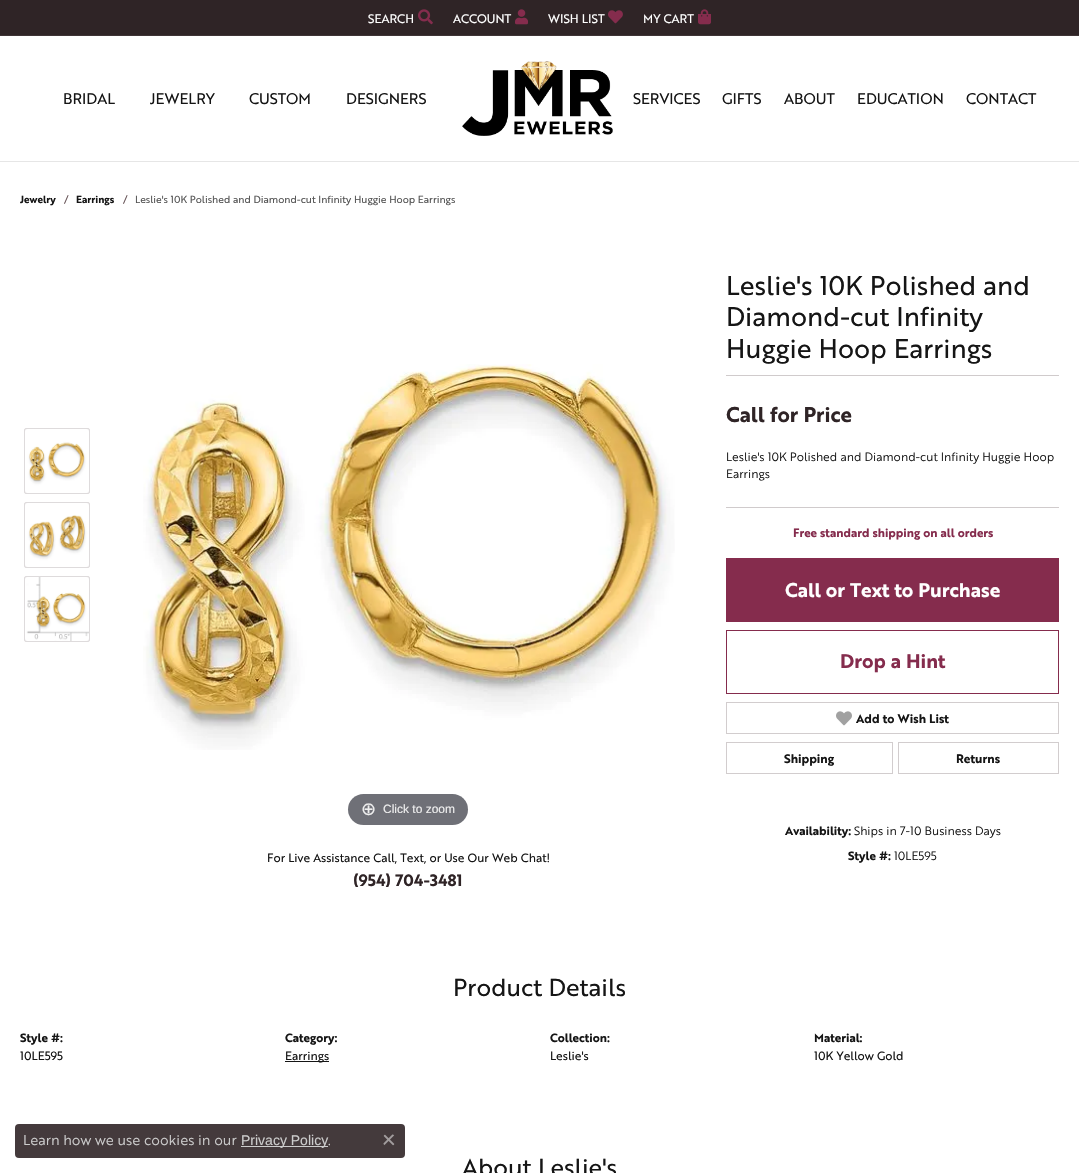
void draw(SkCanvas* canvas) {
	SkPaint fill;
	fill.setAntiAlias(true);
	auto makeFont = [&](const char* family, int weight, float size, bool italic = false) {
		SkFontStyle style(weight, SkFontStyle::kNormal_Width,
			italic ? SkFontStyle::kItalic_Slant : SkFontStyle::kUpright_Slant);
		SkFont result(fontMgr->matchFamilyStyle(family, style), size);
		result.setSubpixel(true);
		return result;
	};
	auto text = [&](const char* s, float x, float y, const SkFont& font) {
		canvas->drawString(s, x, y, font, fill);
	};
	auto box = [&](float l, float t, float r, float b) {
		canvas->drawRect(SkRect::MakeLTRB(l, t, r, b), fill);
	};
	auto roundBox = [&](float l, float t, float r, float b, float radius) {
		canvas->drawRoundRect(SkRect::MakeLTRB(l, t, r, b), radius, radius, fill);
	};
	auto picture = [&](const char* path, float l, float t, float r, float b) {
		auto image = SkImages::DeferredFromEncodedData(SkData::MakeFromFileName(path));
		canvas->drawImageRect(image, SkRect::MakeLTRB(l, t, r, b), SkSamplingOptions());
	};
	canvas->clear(0xFF2F2426);
	fill.setColor(0xFF3F3436);
	box(0, 35, 1079, 36);
	picture("image0.png", 418, 9, 433, 25);
	picture("image1.png", 515, 9, 528, 25);
	picture("image2.png", 608, 10, 623, 24);
	picture("image3.png", 698, 9, 711, 25);
	fill.setColor(0xFFFFFFFF);
	box(0, 36, 1079, 161);
	fill.setColor(0xFFE6E6E6);
	box(0, 161, 1079, 162);
	picture("image4.png", 462, 61, 613, 136);
	fill.setColor(0xFFFFFFFF);
	box(0, 162, 1079, 1173);
	fill.setColor(0xFFEEEBEC);
	canvas->drawRoundRect(SkRect::MakeLTRB(24.5f, 428.5f, 89.5f, 493.5f), 1.5f, 1.5f, fill);
	fill.setStyle(SkPaint::kStroke_Style);
	fill.setStrokeWidth(1);
	fill.setColor(0xFFDEDBDC);
	canvas->drawRoundRect(SkRect::MakeLTRB(24.5f, 428.5f, 89.5f, 493.5f), 1.5f, 1.5f, fill);
	picture("image5.png", 25, 429, 89, 493);
	fill.setStyle(SkPaint::kFill_Style);
	fill.setColor(0xFFEEEBEC);
	canvas->drawRoundRect(SkRect::MakeLTRB(24.5f, 502.5f, 89.5f, 567.5f), 1.5f, 1.5f, fill);
	fill.setStyle(SkPaint::kStroke_Style);
	fill.setColor(0xFFDEDBDC);
	canvas->drawRoundRect(SkRect::MakeLTRB(24.5f, 502.5f, 89.5f, 567.5f), 1.5f, 1.5f, fill);
	picture("image6.png", 25, 503, 89, 567);
	fill.setStyle(SkPaint::kFill_Style);
	fill.setColor(0xFFEEEBEC);
	canvas->drawRoundRect(SkRect::MakeLTRB(24.5f, 576.5f, 89.5f, 641.5f), 1.5f, 1.5f, fill);
	fill.setStyle(SkPaint::kStroke_Style);
	fill.setColor(0xFFDEDBDC);
	canvas->drawRoundRect(SkRect::MakeLTRB(24.5f, 576.5f, 89.5f, 641.5f), 1.5f, 1.5f, fill);
	picture("image7.png", 25, 577, 89, 641);
	picture("image8.png", 143, 364, 675, 750);
	fill.setStyle(SkPaint::kFill_Style);
	fill.setColor(0xFF6F7077);
	roundBox(348, 794, 468, 825, 15.5f);
	fill.setColor(0xFFD0CBCC);
	box(726, 375, 1059, 376);
	box(726, 507, 1059, 508);
	fill.setColor(0xFF852C4D);
	box(726, 558, 1059, 622);
	fill.setStyle(SkPaint::kStroke_Style);
	canvas->drawRect(SkRect::MakeLTRB(726.5f, 630.5f, 1058.5f, 693.5f), fill);
	fill.setColor(0xFFD2CDCE);
	canvas->drawRect(SkRect::MakeLTRB(726.5f, 702.5f, 1058.5f, 733.5f), fill);
	picture("image9.png", 836, 711, 852, 726);
	canvas->drawRect(SkRect::MakeLTRB(726.5f, 742.5f, 892.5f, 773.5f), fill);
	canvas->drawRect(SkRect::MakeLTRB(898.5f, 742.5f, 1058.5f, 773.5f), fill);
	fill.setStyle(SkPaint::kFill_Style);
	fill.setColor(0xFF151515);
	box(285, 1061, 329, 1062);
	fill.setColor(0xFF443A3C);
	roundBox(15, 1124, 405, 1158, 4);
	fill.setColor(0xFFCCCCCC);
	box(241, 1146, 328, 1147);
	picture("image10.png", 383, 1134, 395, 1146);
	auto font1 = makeFont("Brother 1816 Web", 400, 12);
	fill.setColor(0xFFFFFFFF);
	text("SEARCH", 368, 23, font1);
	text("ACCOUNT", 453, 23, font1);
	text("WISH LIST", 548, 23, font1);
	text("MY CART", 643, 23, font1);
	auto font2 = makeFont("Brother 1816 Web", 400, 15);
	fill.setColor(0xFF151515);
	text("BRIDAL", 63, 104, font2);
	text("JEWELRY", 150, 104, font2);
	text("CUSTOM", 249, 104, font2);
	text("DESIGNERS", 346, 104, font2);
	text("SERVICES", 633, 104, font2);
	text("GIFTS", 722, 104, font2);
	text("ABOUT", 784, 104, font2);
	text("EDUCATION", 857, 104, font2);
	text("CONTACT", 966, 104, font2);
	auto font3 = makeFont("Brother 1816 Web", 700, 10);
	text("Jewelry", 20, 203, font3);
	auto font4 = makeFont("Brother 1816 Web", 400, 10);
	fill.setColor(0xFF675457);
	text("/", 64, 203, font4);
	fill.setColor(0xFF151515);
	text("Earrings", 76, 203, font3);
	fill.setColor(0xFF675457);
	text("/", 123, 203, font4);
	fill.setColor(0xFF555555);
	text("Leslie's 10K Polished and Diamond-cut Infinity Huggie Hoop Earrings", 135, 203, font4);
	auto font5 = makeFont("DejaVu Sans", 400, 18);
	fill.setColor(0xFFEEEEEE);
	text("⊕", 361, 815, font5);
	auto font6 = makeFont("Liberation Sans", 400, 12);
	text("Click to zoom", 383, 813, font6);
	auto font7 = makeFont("Brother 1816 Web", 400, 11.75f);
	fill.setColor(0xFF151515);
	text("For Live Assistance Call, Text, or Use Our Web Chat!", 267, 862, font7);
	auto font8 = makeFont("Brother 1816 Web", 700, 16);
	fill.setColor(0xFF2F2426);
	text("(954) 704-3481", 353, 886, font8);
	auto font9 = makeFont("Brother 1816 Web", 400, 26.25f);
	fill.setColor(0xFF151515);
	text("Leslie's 10K Polished and", 726, 295, font9);
	text("Diamond-cut Infinity", 726, 326, font9);
	text("Huggie Hoop Earrings", 726, 358, font9);
	auto font10 = makeFont("Brother 1816 Web", 700, 20.75f);
	fill.setColor(0xFF2F2426);
	text("Call for Price", 726, 422, font10);
	auto font11 = makeFont("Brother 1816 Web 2", 400, 11.75f);
	fill.setColor(0xFF151515);
	text("Leslie's 10K Polished and Diamond-cut Infinity Huggie Hoop", 726, 461, font11);
	text("Earrings", 726, 478, font11);
	auto font12 = makeFont("Brother 1816 Web", 700, 11.75f);
	fill.setColor(0xFF852C4D);
	text("Free standard shipping on all orders", 793, 537, font12);
	auto font13 = makeFont("Brother 1816 Web", 700, 19.25f);
	fill.setColor(0xFFFFFFFF);
	text("Call or Text to Purchase", 785, 597, font13);
	fill.setColor(0xFF852C4D);
	text("Drop a Hint", 840, 668, font13);
	auto font14 = makeFont("Brother 1816 Web", 700, 12);
	fill.setColor(0xFF151515);
	text("Add to Wish List", 856, 723, font14);
	text("Shipping", 784, 763, font14);
	text("Returns", 956, 763, font14);
	text("Availability:", 785, 835, font12);
	text("Ships in 7-10 Business Days", 854, 835, font11);
	text("Style #:", 848, 860, font12);
	text("10LE595", 894, 860, font11);
	auto font15 = makeFont("Brother 1816 Web", 400, 24);
	text("Product Details", 453, 996, font15);
	text("Style #:", 20, 1042, font12);
	text("10LE595", 20, 1060, font7);
	text("Category:", 285, 1042, font12);
	text("Earrings", 285, 1060, font7);
	text("Collection:", 550, 1042, font12);
	text("Leslie's", 550, 1060, font7);
	text("Material:", 814, 1042, font12);
	text("10K Yellow Gold", 814, 1060, font7);
	text("About Leslie's", 462, 1176, font15);
	auto font16 = makeFont("Brother 1816 Web 2", 400, 14);
	fill.setColor(0xFFCCCCCC);
	text("Learn how we use cookies in our", 23, 1145, font16);
	auto font17 = makeFont("Liberation Sans", 400, 14);
	text("Privacy Policy", 241, 1145, font17);
	text(".", 328, 1145, font16);
}
